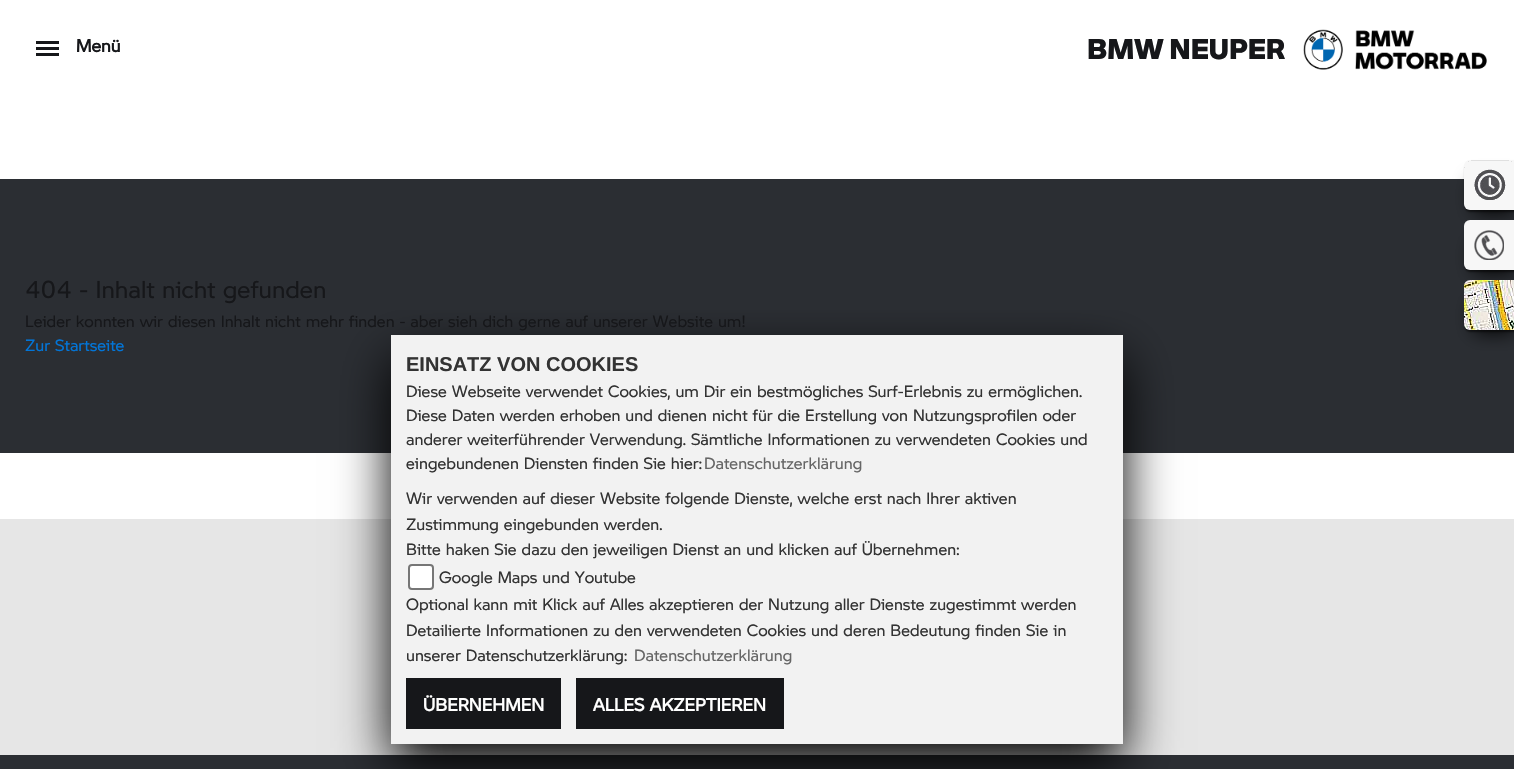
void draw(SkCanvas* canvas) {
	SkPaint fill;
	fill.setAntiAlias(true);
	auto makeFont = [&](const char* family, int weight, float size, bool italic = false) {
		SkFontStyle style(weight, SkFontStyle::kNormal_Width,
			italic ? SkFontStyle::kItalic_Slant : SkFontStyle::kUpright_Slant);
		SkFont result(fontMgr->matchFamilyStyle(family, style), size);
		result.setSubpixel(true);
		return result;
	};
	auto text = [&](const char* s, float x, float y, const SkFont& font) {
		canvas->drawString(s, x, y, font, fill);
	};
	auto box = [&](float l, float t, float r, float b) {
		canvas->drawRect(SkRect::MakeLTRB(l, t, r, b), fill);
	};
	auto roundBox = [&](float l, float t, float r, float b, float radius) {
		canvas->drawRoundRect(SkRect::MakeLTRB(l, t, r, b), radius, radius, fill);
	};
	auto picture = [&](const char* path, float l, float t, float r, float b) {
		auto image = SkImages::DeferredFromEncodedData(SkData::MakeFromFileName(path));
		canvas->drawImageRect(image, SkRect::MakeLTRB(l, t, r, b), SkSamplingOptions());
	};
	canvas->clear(0xFF2B2E33);
	fill.setColor(0xFFFFFFFF);
	box(0, 0, 1514, 179);
	fill.setColor(0xFF16171A);
	box(36, 41, 59, 44);
	box(36, 47, 59, 50);
	box(36, 53, 59, 56);
	picture("image0.png", 1303, 29, 1487, 70);
	fill.setColor(0xFF000000);
	fill.setMaskFilter(SkMaskFilter::MakeBlur(kNormal_SkBlurStyle, 10));
	canvas->drawRect(SkRect::MakeLTRB(1474, 182, 1514, 212), fill);
	fill.setMaskFilter(nullptr);
	fill.setColor(0x80000000);
	fill.setMaskFilter(SkMaskFilter::MakeBlur(kNormal_SkBlurStyle, 1));
	canvas->drawRoundRect(SkRect::MakeLTRB(1465, 164, 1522, 212), 5, 5, fill);
	fill.setMaskFilter(nullptr);
	fill.setColor(0xFFF7F7F7);
	roundBox(1464, 160, 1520, 210, 6);
	picture("image1.png", 1464, 160, 1512, 200);
	fill.setColor(0xFF000000);
	fill.setMaskFilter(SkMaskFilter::MakeBlur(kNormal_SkBlurStyle, 10));
	canvas->drawRect(SkRect::MakeLTRB(1474, 242, 1514, 272), fill);
	fill.setMaskFilter(nullptr);
	fill.setColor(0x80000000);
	fill.setMaskFilter(SkMaskFilter::MakeBlur(kNormal_SkBlurStyle, 1));
	canvas->drawRoundRect(SkRect::MakeLTRB(1465, 224, 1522, 272), 5, 5, fill);
	fill.setMaskFilter(nullptr);
	fill.setColor(0xFFF7F7F7);
	roundBox(1464, 220, 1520, 270, 6);
	picture("image2.png", 1474, 230, 1504, 260);
	fill.setColor(0xFF000000);
	fill.setMaskFilter(SkMaskFilter::MakeBlur(kNormal_SkBlurStyle, 10));
	canvas->drawRect(SkRect::MakeLTRB(1474, 302, 1514, 332), fill);
	fill.setMaskFilter(nullptr);
	fill.setColor(0x80000000);
	fill.setMaskFilter(SkMaskFilter::MakeBlur(kNormal_SkBlurStyle, 1));
	canvas->drawRoundRect(SkRect::MakeLTRB(1465, 284, 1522, 332), 5, 5, fill);
	fill.setMaskFilter(nullptr);
	picture("image3.png", 1464, 280, 1514, 330);
	fill.setColor(0xFFFFFFFF);
	box(0, 453, 1514, 519);
	fill.setColor(0xFFE6E6E6);
	box(0, 519, 1514, 755);
	canvas->save();
	canvas->clipRect(SkRect::MakeLTRB(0, 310, 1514, 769));
	fill.setColor(0xFF000000);
	fill.setMaskFilter(SkMaskFilter::MakeBlur(kNormal_SkBlurStyle, 25));
	canvas->drawRect(SkRect::MakeLTRB(391, 357, 1123, 766), fill);
	fill.setMaskFilter(nullptr);
	canvas->restore();
	fill.setColor(0xFFF2F2F2);
	box(391, 335, 1123, 744);
	fill.setColor(0xFFFFFFFF);
	canvas->drawRoundRect(SkRect::MakeLTRB(409, 565, 433, 589), 3, 3, fill);
	fill.setStyle(SkPaint::kStroke_Style);
	fill.setStrokeWidth(2);
	fill.setColor(0xFF767676);
	canvas->drawRoundRect(SkRect::MakeLTRB(409, 565, 433, 589), 3, 3, fill);
	fill.setStyle(SkPaint::kFill_Style);
	fill.setColor(0xFF16171A);
	box(406, 678, 561, 729);
	box(576, 678, 784, 729);
	auto font1 = makeFont("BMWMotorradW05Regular", 700, 17.5f);
	text("Menü", 76, 52, font1);
	auto font2 = makeFont("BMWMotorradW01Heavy", 900, 28.25f);
	text("BMW NEUPER", 1087, 59, font2);
	auto font3 = makeFont("BMWMotorradW05Regular", 400, 24);
	text("404 - Inhalt nicht gefunden", 25, 298, font3);
	auto font4 = makeFont("BMWMotorradW05Regular", 400, 16);
	text("Leider konnten wir diesen Inhalt nicht mehr finden - aber sieh dich gerne auf unserer Website um!", 25, 327, font4);
	fill.setColor(0xFF0275D8);
	text("Zur Startseite", 25, 351, font4);
	auto font5 = makeFont("Liberation Sans", 700, 20);
	fill.setColor(0xFF333333);
	text("EINSATZ VON COOKIES", 406, 371, font5);
	text("Diese Webseite verwendet Cookies, um Dir ein bestmögliches Surf-Erlebnis zu ermöglichen.", 406, 397, font4);
	text("Diese Daten werden erhoben und dienen nicht für die Erstellung von Nutzungsprofilen oder", 406, 421, font4);
	text("anderer weiterführender Verwendung. Sämtliche Informationen zu verwendeten Cookies und", 406, 445, font4);
	text("eingebundenen Diensten finden Sie hier:", 406, 469, font4);
	fill.setColor(0xFF666666);
	text("Datenschutzerklärung", 704, 469, font4);
	fill.setColor(0xFF333333);
	text("Wir verwenden auf dieser Website folgende Dienste, welche erst nach Ihrer aktiven", 406, 504, font4);
	text("Zustimmung eingebunden werden.", 406, 530, font4);
	text("Bitte haken Sie dazu den jeweiligen Dienst an und klicken auf Übernehmen:", 406, 555, font4);
	text("Google Maps und Youtube", 439, 583, font4);
	text("Optional kann mit Klick auf Alles akzeptieren der Nutzung aller Dienste zugestimmt werden", 406, 610, font4);
	text("Detailierte Informationen zu den verwendeten Cookies und deren Bedeutung finden Sie in", 406, 636, font4);
	text("unserer Datenschutzerklärung:", 406, 661, font4);
	fill.setColor(0xFF666666);
	text("Datenschutzerklärung", 634, 661, font4);
	auto font6 = makeFont("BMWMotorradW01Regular", 700, 17.5f);
	fill.setColor(0xFFFFFFFF);
	text("ÜBERNEHMEN", 423, 711, font6);
	text("ALLES AKZEPTIEREN", 593, 711, font6);
}
